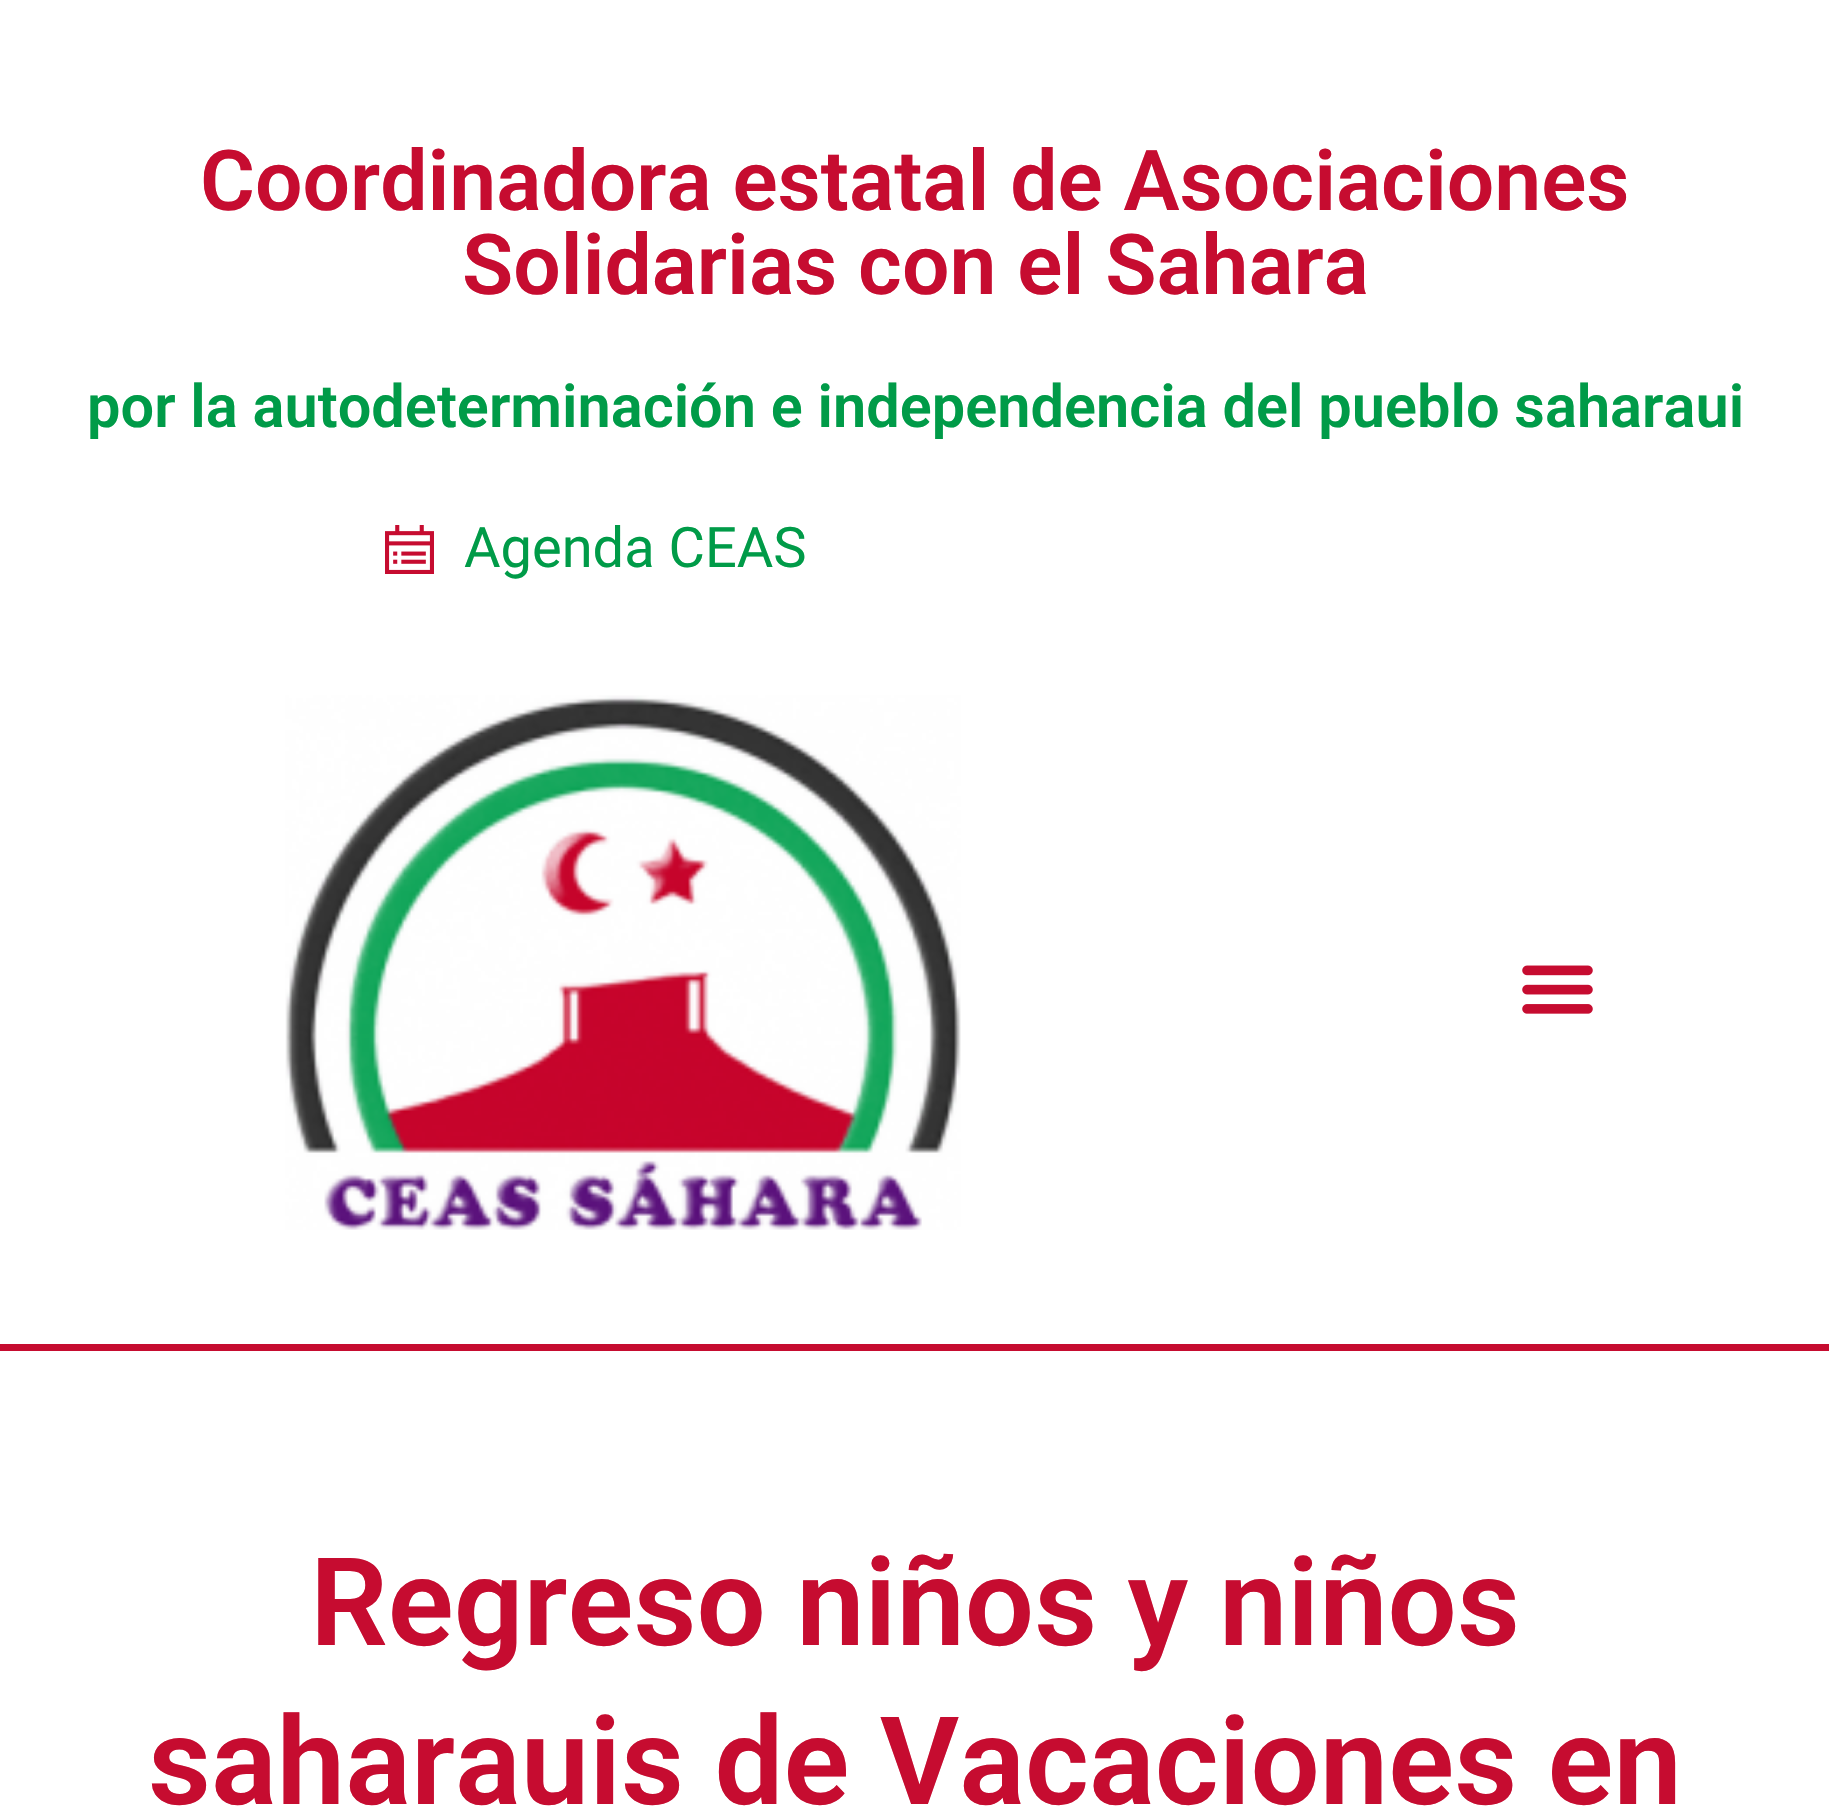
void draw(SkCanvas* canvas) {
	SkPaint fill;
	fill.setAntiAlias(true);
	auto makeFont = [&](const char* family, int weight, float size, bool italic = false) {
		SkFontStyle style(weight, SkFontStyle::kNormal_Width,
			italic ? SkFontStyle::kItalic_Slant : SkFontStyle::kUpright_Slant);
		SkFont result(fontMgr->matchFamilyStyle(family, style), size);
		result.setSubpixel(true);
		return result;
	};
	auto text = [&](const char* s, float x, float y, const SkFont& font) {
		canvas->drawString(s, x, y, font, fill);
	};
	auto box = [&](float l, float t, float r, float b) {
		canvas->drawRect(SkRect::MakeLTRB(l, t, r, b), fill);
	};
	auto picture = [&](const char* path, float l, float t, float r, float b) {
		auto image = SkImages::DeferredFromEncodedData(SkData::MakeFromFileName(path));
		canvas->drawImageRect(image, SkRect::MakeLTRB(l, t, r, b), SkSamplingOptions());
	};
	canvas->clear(0xFFFFFFFF);
	picture("image0.png", 385, 525, 434, 574);
	fill.setColor(0xFFC60C30);
	box(0, 1344, 1829, 1351);
	picture("image1.png", 285, 695, 961, 1230);
	picture("image2.png", 1522, 965, 1593, 1014);
	auto font1 = makeFont("Roboto", 600, 84);
	text("Coordinadora estatal de Asociaciones", 200, 210, font1);
	text("Solidarias con el Sahara", 462, 294, font1);
	auto font2 = makeFont("Roboto", 600, 59.5f);
	fill.setColor(0xFF009B48);
	text("por la autodeterminación e independencia del pueblo saharaui", 87, 427, font2);
	auto font3 = makeFont("Roboto", 400, 56);
	text("Agenda CEAS", 464, 567, font3);
	auto font4 = makeFont("Roboto", 600, 122.5f);
	fill.setColor(0xFFC60C30);
	text("Regreso niños y niños", 310, 1645, font4);
	text("saharauis de Vacaciones en", 148, 1804, font4);
}
